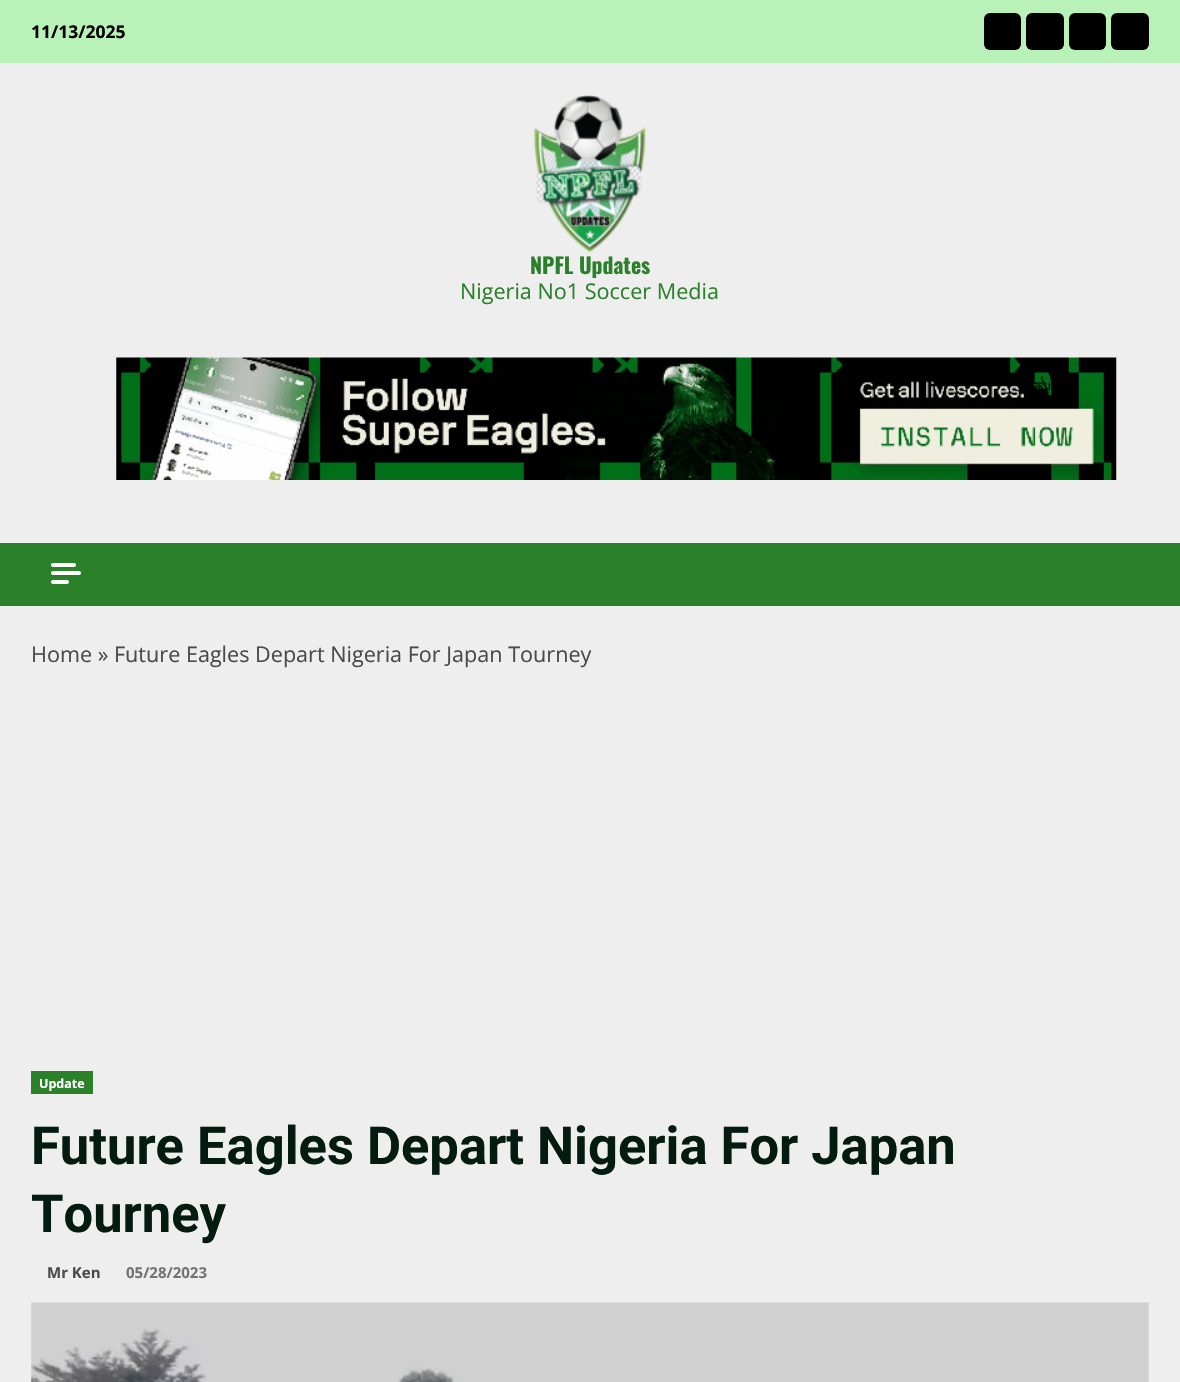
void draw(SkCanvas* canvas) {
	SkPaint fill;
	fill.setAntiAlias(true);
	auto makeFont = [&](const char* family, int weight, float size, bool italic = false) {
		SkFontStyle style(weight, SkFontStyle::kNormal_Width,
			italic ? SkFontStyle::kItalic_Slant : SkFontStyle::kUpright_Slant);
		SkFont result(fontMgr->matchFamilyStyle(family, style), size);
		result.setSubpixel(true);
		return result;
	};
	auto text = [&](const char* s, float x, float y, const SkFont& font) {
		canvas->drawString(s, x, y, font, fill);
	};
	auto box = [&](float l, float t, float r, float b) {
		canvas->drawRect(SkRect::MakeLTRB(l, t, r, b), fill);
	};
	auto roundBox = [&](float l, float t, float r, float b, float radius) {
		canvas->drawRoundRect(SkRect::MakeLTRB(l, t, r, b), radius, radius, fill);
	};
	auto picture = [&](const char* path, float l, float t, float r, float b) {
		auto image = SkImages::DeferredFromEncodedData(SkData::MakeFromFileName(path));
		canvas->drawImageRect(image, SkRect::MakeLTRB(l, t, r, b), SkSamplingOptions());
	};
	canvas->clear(0xFFEEEEEE);
	fill.setColor(0xFFB9F2B8);
	box(0, 0, 1180, 63);
	fill.setColor(0xFF000000);
	roundBox(984, 13, 1021, 50, 6);
	roundBox(1026, 13, 1064, 50, 6);
	roundBox(1069, 13, 1106, 50, 6);
	roundBox(1111, 13, 1149, 50, 6);
	picture("image0.png", 533, 95, 646, 253);
	picture("image1.png", 116, 357, 1117, 480);
	fill.setColor(0xFF2B802A);
	box(0, 543, 1180, 606);
	fill.setColor(0xFFFFFFFF);
	roundBox(51, 563, 76, 567, 2);
	roundBox(51, 571, 81, 575, 2);
	roundBox(51, 580, 69, 584, 2);
	fill.setColor(0xFF2B802A);
	box(31, 1071, 93, 1094);
	picture("image2.png", 31, 1302, 1149, 1382);
	auto font1 = makeFont("Open Sans", 700, 17.5f);
	fill.setColor(0xFF000000);
	text("11/13/2025", 31, 38, font1);
	auto font2 = makeFont("Oswald", 700, 21.6f);
	fill.setColor(0xFF2B802A);
	text("NPFL Updates", 530, 274, font2);
	auto font3 = makeFont("Open Sans", 400, 21.6f);
	text("Nigeria No1 Soccer Media", 460, 299, font3);
	fill.setColor(0xFF4A4A4A);
	text("Home » Future Eagles Depart Nigeria For Japan Tourney", 31, 662, font3);
	auto font4 = makeFont("Open Sans", 700, 12.5f);
	fill.setColor(0xFFFFFFFF);
	text("Update", 39, 1088, font4);
	auto font5 = makeFont("Roboto", 700, 52.5f);
	fill.setColor(0xFF031B11);
	text("Future Eagles Depart Nigeria For Japan", 31, 1164, font5);
	text("Tourney", 31, 1232, font5);
	auto font6 = makeFont("Open Sans", 700, 15);
	fill.setColor(0xFF4A4A4A);
	text("Mr Ken", 47, 1278, font6);
	fill.setColor(0xFF737373);
	text("05/28/2023", 126, 1278, font6);
}
